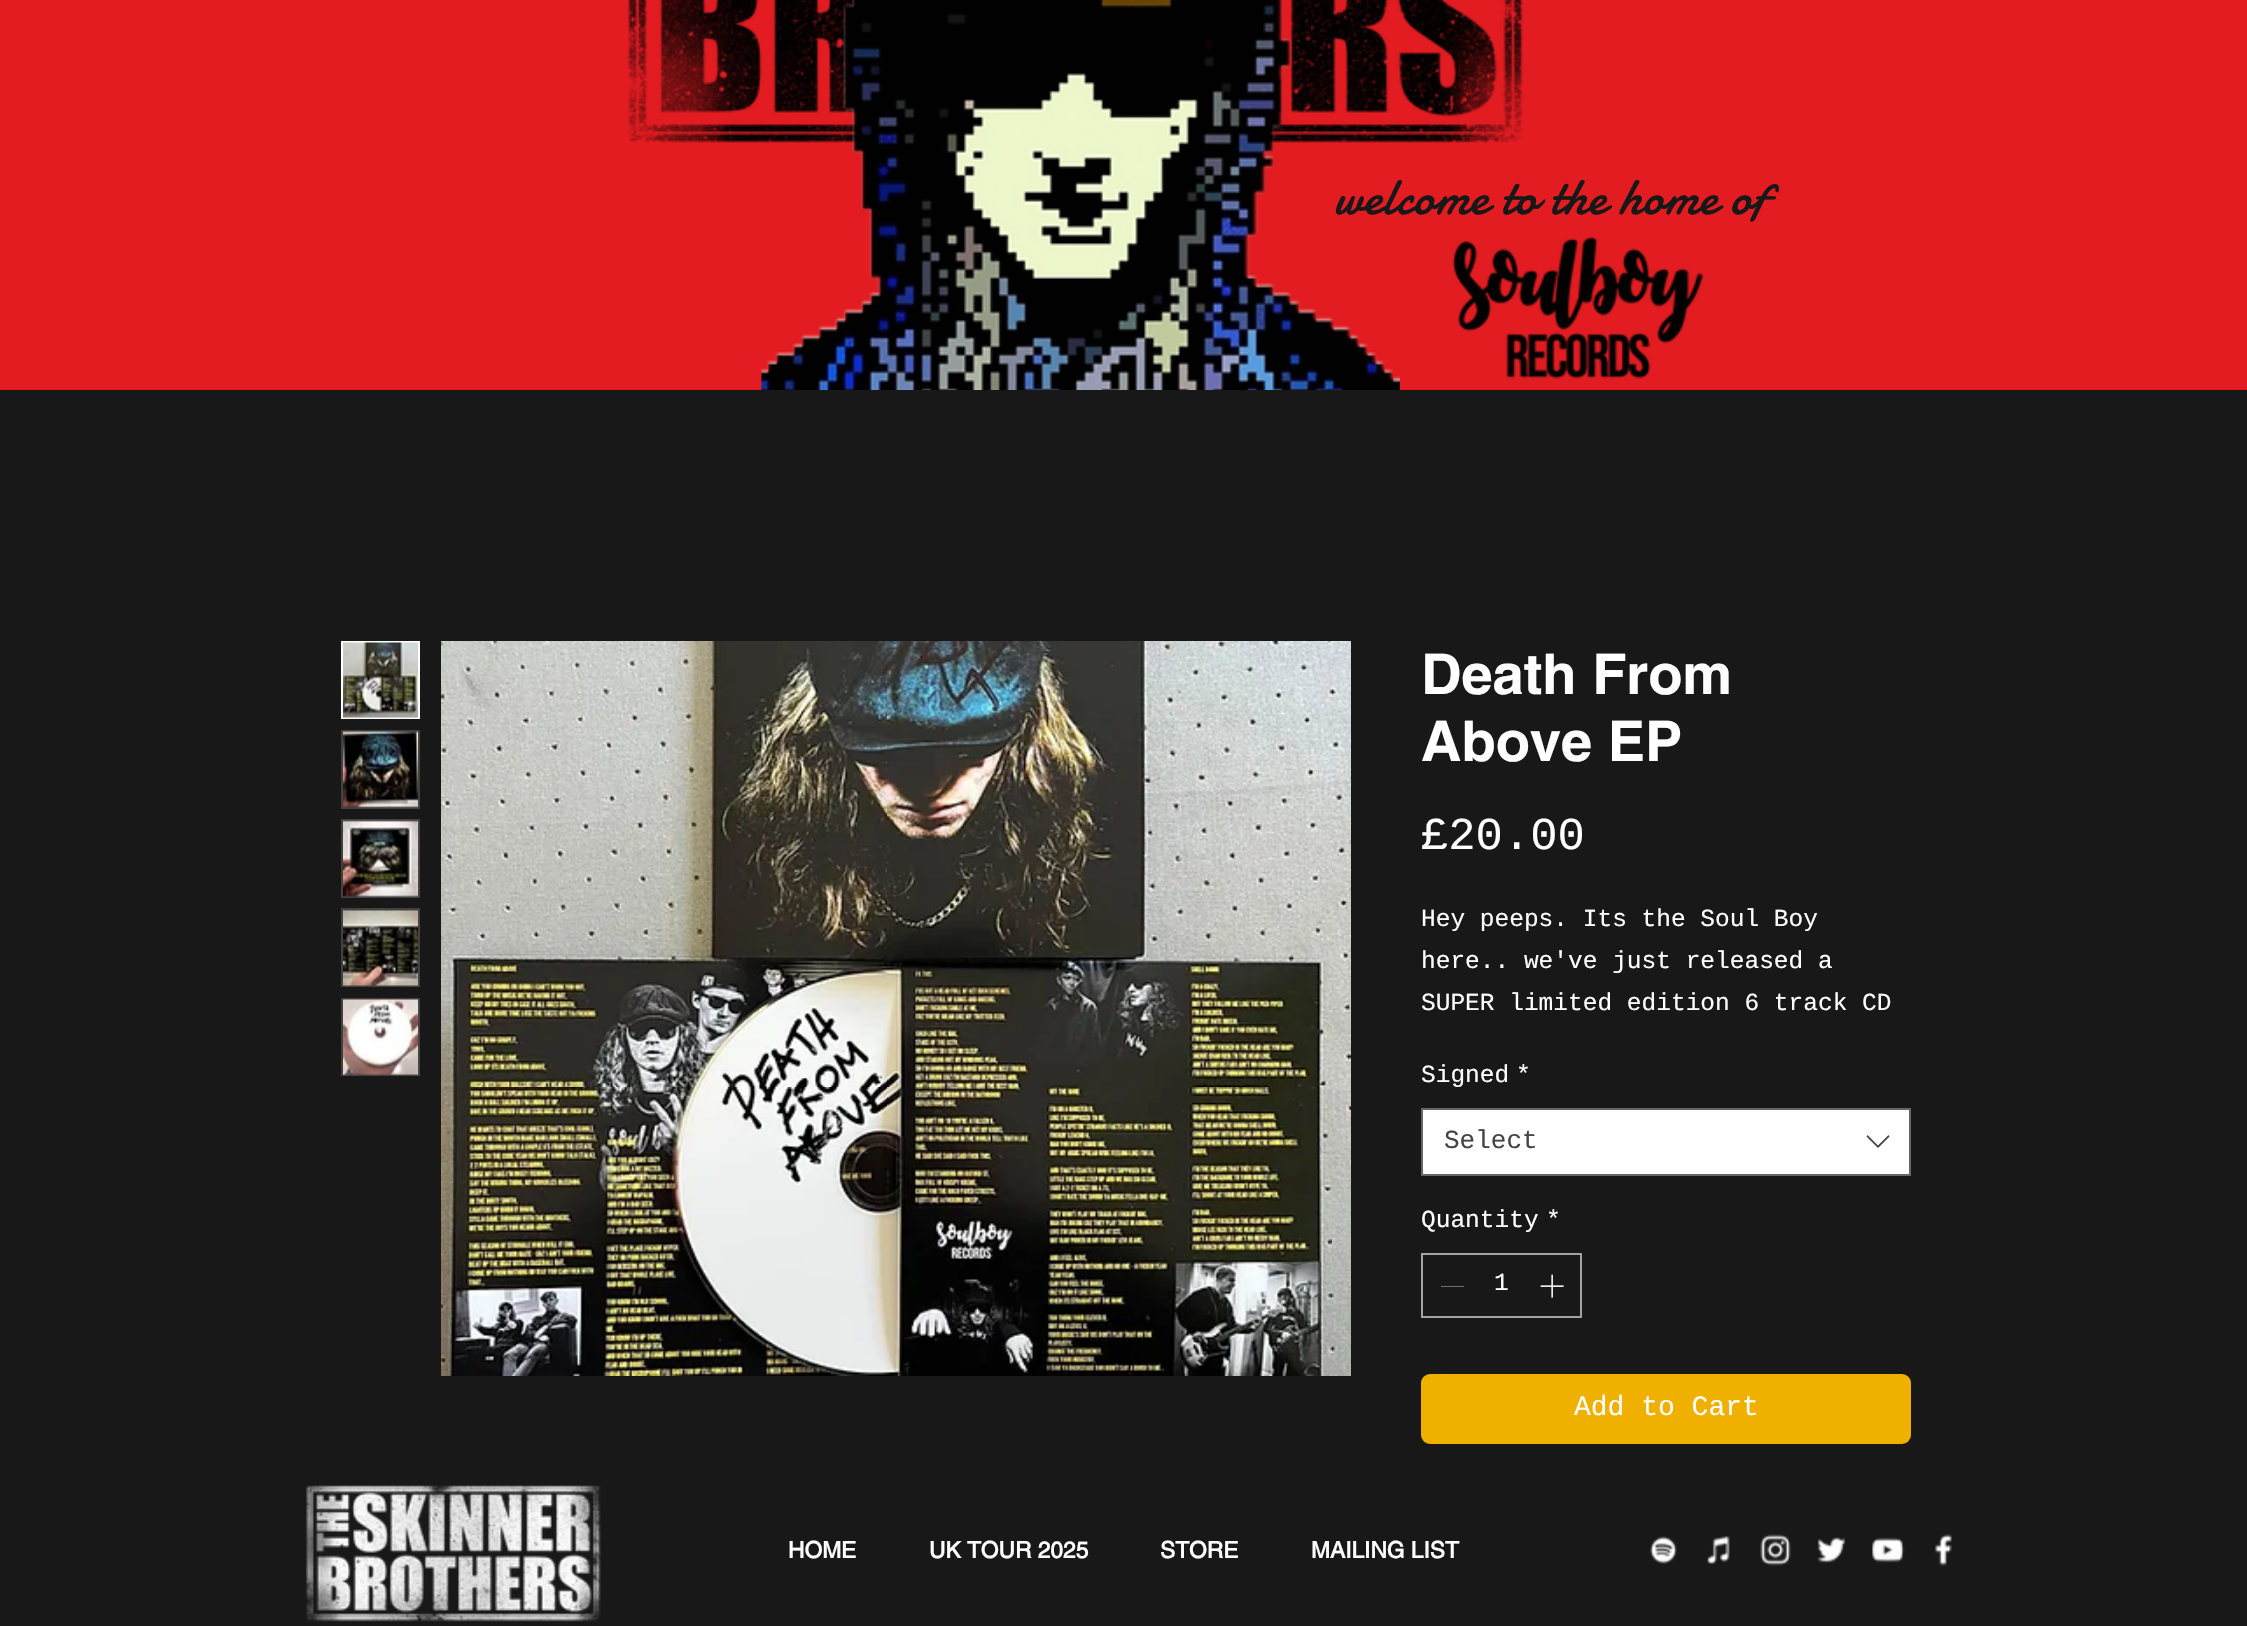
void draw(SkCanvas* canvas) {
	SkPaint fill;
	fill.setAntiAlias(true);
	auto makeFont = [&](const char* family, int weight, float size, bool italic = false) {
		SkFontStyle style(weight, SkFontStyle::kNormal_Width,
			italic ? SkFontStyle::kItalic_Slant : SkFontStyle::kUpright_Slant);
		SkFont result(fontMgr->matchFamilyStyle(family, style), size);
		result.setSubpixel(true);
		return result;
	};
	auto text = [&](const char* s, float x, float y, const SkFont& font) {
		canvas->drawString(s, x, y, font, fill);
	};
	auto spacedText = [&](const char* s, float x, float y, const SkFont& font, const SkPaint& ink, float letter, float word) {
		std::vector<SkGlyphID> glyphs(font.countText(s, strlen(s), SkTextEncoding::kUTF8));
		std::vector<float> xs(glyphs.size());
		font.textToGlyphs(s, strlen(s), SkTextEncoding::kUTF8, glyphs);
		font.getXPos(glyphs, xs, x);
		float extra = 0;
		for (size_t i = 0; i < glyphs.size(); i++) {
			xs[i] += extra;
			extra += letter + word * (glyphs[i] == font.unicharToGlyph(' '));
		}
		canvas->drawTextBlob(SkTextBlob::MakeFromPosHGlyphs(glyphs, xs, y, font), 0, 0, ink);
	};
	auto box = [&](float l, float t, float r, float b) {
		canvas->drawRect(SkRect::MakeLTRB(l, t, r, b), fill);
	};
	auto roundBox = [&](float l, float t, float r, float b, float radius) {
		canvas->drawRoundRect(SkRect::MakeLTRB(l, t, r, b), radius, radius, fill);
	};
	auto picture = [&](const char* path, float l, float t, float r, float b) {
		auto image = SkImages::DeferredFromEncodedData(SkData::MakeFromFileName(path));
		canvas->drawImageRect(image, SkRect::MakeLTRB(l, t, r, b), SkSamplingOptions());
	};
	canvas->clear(0xFF181818);
	fill.setColor(0xFFE21C21);
	box(0, 0, 2247, 390);
	picture("image0.png", 627, 0, 1523, 143);
	picture("image1.png", 761, 0, 1400, 390);
	picture("image2.png", 1452, 236, 1704, 379);
	fill.setStyle(SkPaint::kStroke_Style);
	fill.setStrokeWidth(2);
	fill.setColor(0xFFFFFFFF);
	canvas->drawRect(SkRect::MakeLTRB(342, 642, 419, 718), fill);
	picture("image3.png", 343, 642, 419, 719);
	fill.setStyle(SkPaint::kFill_Style);
	fill.setColor(0xFF414141);
	box(341, 730, 420, 809);
	picture("image4.png", 343, 731, 419, 808);
	box(341, 819, 420, 898);
	picture("image5.png", 343, 820, 419, 897);
	box(341, 908, 420, 987);
	picture("image6.png", 343, 910, 419, 986);
	box(341, 998, 420, 1076);
	picture("image7.png", 343, 999, 419, 1076);
	picture("image8.png", 441, 641, 1351, 1376);
	fill.setColor(0xFFFFFFFF);
	canvas->drawRect(SkRect::MakeLTRB(1422, 1109, 1910, 1175), fill);
	fill.setStyle(SkPaint::kStroke_Style);
	fill.setColor(0xFF666666);
	canvas->drawRect(SkRect::MakeLTRB(1422, 1109, 1910, 1175), fill);
	fill.setStyle(SkPaint::kFill_Style);
	fill.setColor(0xFF444444);
	canvas->drawPath(SkPathBuilder(SkPathFillType::kEvenOdd).moveTo(1888.5f, 1135).lineTo(1889.5f, 1136.5f).lineTo(1878, 1148).lineTo(1866.5f, 1136.5f).lineTo(1867.5f, 1135).lineTo(1878, 1145.5f).close().detach(), fill);
	fill.setStyle(SkPaint::kStroke_Style);
	fill.setColor(0xFFA3A3A3);
	canvas->drawRect(SkRect::MakeLTRB(1422, 1254, 1581, 1317), fill);
	fill.setStyle(SkPaint::kFill_Style);
	fill.setColor(0xFF707070);
	box(1441, 1286, 1464, 1287);
	picture("image9.png", 1540, 1274, 1564, 1298);
	fill.setColor(0xFFF0B000);
	roundBox(1421, 1374, 1911, 1444, 9);
	picture("image10.png", 306, 1485, 601, 1622);
	picture("image11.png", 1650, 1536, 1677, 1564);
	picture("image12.png", 1707, 1536, 1730, 1564);
	picture("image13.png", 1760, 1534, 1791, 1566);
	picture("image14.png", 1817, 1537, 1846, 1563);
	picture("image15.png", 1872, 1537, 1905, 1563);
	picture("image16.png", 1935, 1534, 1952, 1566);
	auto font1 = makeFont("Damion", 400, 52.5f);
	fill.setColor(0xFF181818);
	spacedText("welcome to the home of", 1335, 214, font1, fill, 0.5f, 0);
	auto font2 = makeFont("helvetica", 700, 56);
	fill.setColor(0xFFFFFFFF);
	text("Death From", 1421, 694, font2);
	text("Above EP", 1421, 761, font2);
	auto font3 = makeFont("Liberation Mono", 400, 45.5f);
	text("£20.00", 1421, 849, font3);
	auto font4 = makeFont("Liberation Mono", 400, 24.5f);
	text("Hey peeps. Its the Soul Boy", 1421, 926, font4);
	text("here.. we've just released a", 1421, 968, font4);
	text("SUPER limited edition 6 track CD", 1421, 1010, font4);
	text("Signed", 1421, 1082, font4);
	text("*", 1516, 1082, font4);
	auto font5 = makeFont("Liberation Mono", 400, 26);
	fill.setColor(0xFF444444);
	text("Select", 1444, 1148, font5);
	fill.setColor(0xFFFFFFFF);
	text("Quantity", 1421, 1227, font4);
	text("*", 1546, 1227, font4);
	text("1", 1494, 1290, font4);
	auto font6 = makeFont("Liberation Mono", 400, 28);
	text("Add to Cart", 1574, 1415, font6);
	auto font7 = makeFont("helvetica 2", 700, 22.75f);
	text("HOME", 788, 1558, font7);
	text("UK TOUR 2025", 929, 1558, font7);
	text("STORE", 1160, 1558, font7);
	text("MAILING LIST", 1311, 1558, font7);
}
